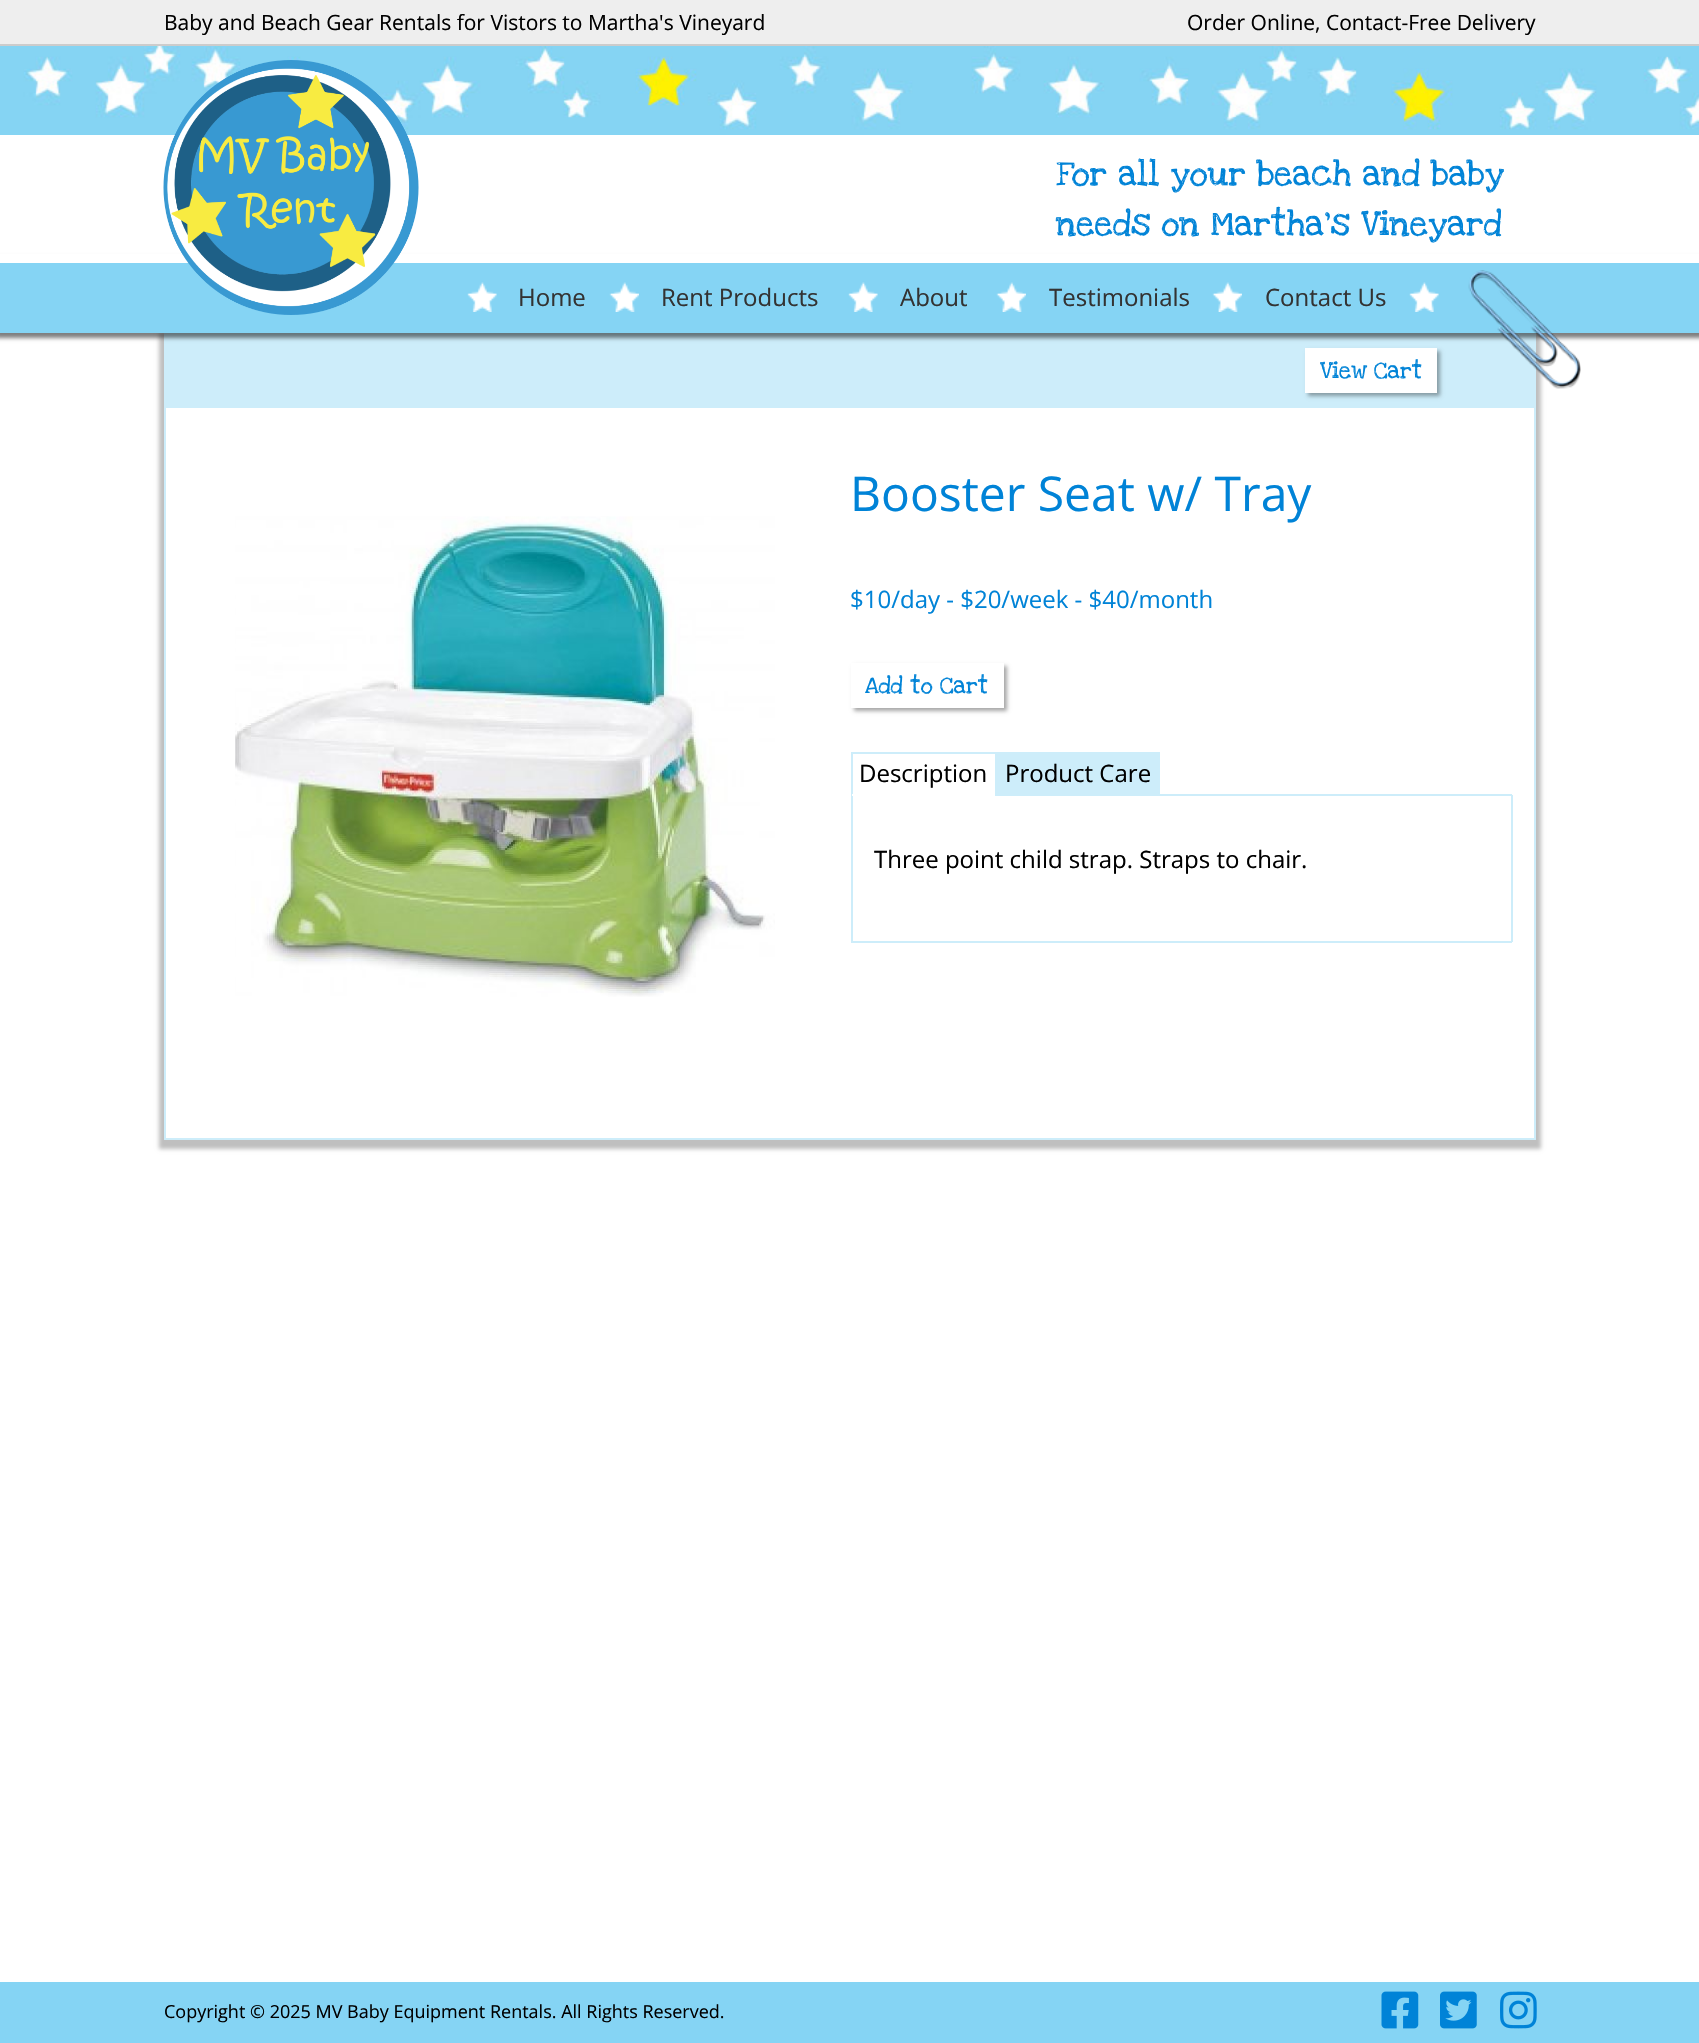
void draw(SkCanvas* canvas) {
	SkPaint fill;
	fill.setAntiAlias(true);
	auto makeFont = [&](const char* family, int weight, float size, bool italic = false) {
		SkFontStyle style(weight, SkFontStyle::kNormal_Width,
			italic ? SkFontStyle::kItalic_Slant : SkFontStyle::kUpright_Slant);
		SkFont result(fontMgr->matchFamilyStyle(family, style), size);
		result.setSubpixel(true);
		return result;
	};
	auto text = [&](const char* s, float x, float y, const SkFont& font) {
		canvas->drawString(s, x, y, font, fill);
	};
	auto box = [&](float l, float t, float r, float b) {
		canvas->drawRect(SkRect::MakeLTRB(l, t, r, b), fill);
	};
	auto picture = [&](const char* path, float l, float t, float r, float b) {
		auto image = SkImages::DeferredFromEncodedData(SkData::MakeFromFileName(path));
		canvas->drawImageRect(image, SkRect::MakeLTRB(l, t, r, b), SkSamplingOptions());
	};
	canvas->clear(0xFFFFFFFF);
	fill.setColor(0xFFEEEEEE);
	box(0, 0, 1699, 44);
	fill.setColor(0xFFCCCCCC);
	box(0, 44, 1699, 46);
	canvas->save();
	canvas->clipPath(SkPathBuilder(SkPathFillType::kEvenOdd).moveTo(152, 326).lineTo(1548, 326).lineTo(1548, 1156).lineTo(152, 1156).close().moveTo(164, 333).lineTo(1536, 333).lineTo(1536, 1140).lineTo(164, 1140).close().detach(), true);
	fill.setColor(0x40000000);
	fill.setMaskFilter(SkMaskFilter::MakeBlur(kNormal_SkBlurStyle, 2));
	canvas->drawRect(SkRect::MakeLTRB(159, 333, 1541, 1149), fill);
	fill.setMaskFilter(nullptr);
	canvas->restore();
	fill.setStyle(SkPaint::kStroke_Style);
	fill.setStrokeWidth(2);
	fill.setColor(0xFFCDEDFA);
	canvas->drawRect(SkRect::MakeLTRB(165, 334, 1535, 1139), fill);
	fill.setStyle(SkPaint::kFill_Style);
	box(166, 335, 1534, 408);
	fill.setColor(0x80000000);
	fill.setMaskFilter(SkMaskFilter::MakeBlur(kNormal_SkBlurStyle, 2));
	canvas->drawRect(SkRect::MakeLTRB(-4, 258, 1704, 338), fill);
	fill.setMaskFilter(nullptr);
	fill.setColor(0xFFFFFFFF);
	box(0, 254, 1699, 263);
	picture("image0.png", 0, 46, 1699, 135);
	fill.setColor(0xFF85D4F4);
	box(0, 263, 1699, 333);
	picture("image1.png", 163, 60, 419, 315);
	picture("image2.png", 1468, 270, 1581, 389);
	picture("image3.png", 467, 282, 497, 312);
	picture("image4.png", 609, 282, 639, 312);
	picture("image5.png", 848, 282, 878, 312);
	picture("image6.png", 996, 282, 1026, 312);
	picture("image4.png", 1212, 282, 1242, 312);
	picture("image3.png", 1409, 282, 1439, 312);
	fill.setColor(0x59000000);
	fill.setMaskFilter(SkMaskFilter::MakeBlur(kNormal_SkBlurStyle, 2));
	canvas->drawRect(SkRect::MakeLTRB(1308, 351, 1440, 396), fill);
	fill.setMaskFilter(nullptr);
	fill.setColor(0xFFFFFFFF);
	box(1305, 348, 1437, 393);
	picture("image7.png", 235, 516, 775, 997);
	fill.setColor(0x59000000);
	fill.setMaskFilter(SkMaskFilter::MakeBlur(kNormal_SkBlurStyle, 2));
	canvas->drawRect(SkRect::MakeLTRB(854, 666, 1007, 711), fill);
	fill.setMaskFilter(nullptr);
	fill.setColor(0xFFFFFFFF);
	box(851, 663, 1004, 708);
	fill.setColor(0xFFCDEDFA);
	box(851, 752, 996, 754);
	box(995, 752, 996, 795);
	box(851, 752, 853, 795);
	box(1511, 795, 1513, 942);
	box(851, 941, 1512, 943);
	box(851, 795, 853, 942);
	box(851, 794, 1512, 796);
	fill.setColor(0xFFFFFFFF);
	box(852, 794, 995, 796);
	fill.setColor(0xFFCDEDFA);
	box(996, 752, 1160, 794);
	fill.setColor(0xFF85D4F4);
	box(0, 1982, 1699, 2043);
	picture("image8.png", 1381, 1991, 1419, 2029);
	picture("image9.png", 1440, 1991, 1477, 2029);
	picture("image10.png", 1500, 1991, 1537, 2029);
	auto font1 = makeFont("Open Sans", 400, 21);
	fill.setColor(0xFF000000);
	text("Baby and Beach Gear Rentals for Vistors to Martha's Vineyard", 164, 30, font1);
	text("Order Online, Contact-Free Delivery", 1187, 30, font1);
	auto font2 = makeFont("Love Ya Like A Sister", 400, 36);
	fill.setColor(0xFF0083D7);
	text("For all your beach and baby", 1056, 185, font2);
	text("needs on Martha's Vineyard", 1056, 235, font2);
	auto font3 = makeFont("Open Sans", 400, 24);
	fill.setColor(0xFF333333);
	text("Home", 518, 306, font3);
	text("Rent Products", 661, 306, font3);
	text("About", 900, 306, font3);
	text("Testimonials", 1049, 306, font3);
	text("Contact Us", 1265, 306, font3);
	auto font4 = makeFont("Love Ya Like A Sister", 400, 24);
	fill.setColor(0xFF0083D7);
	text("View Cart", 1320, 378, font4);
	auto font5 = makeFont("Open Sans", 400, 48);
	text("Booster Seat w/ Tray", 850, 511, font5);
	text("$10/day - $20/week - $40/month", 850, 608, font3);
	text("Add to Cart", 865, 693, font4);
	fill.setColor(0xFF000000);
	text("Description", 859, 782, font3);
	text("Product Care", 1005, 782, font3);
	text("Three point child strap. Straps to chair.", 874, 868, font3);
	auto font6 = makeFont("Open Sans", 400, 18);
	text("Copyright © 2025 MV Baby Equipment Rentals. All Rights Reserved.", 164, 2018, font6);
}
